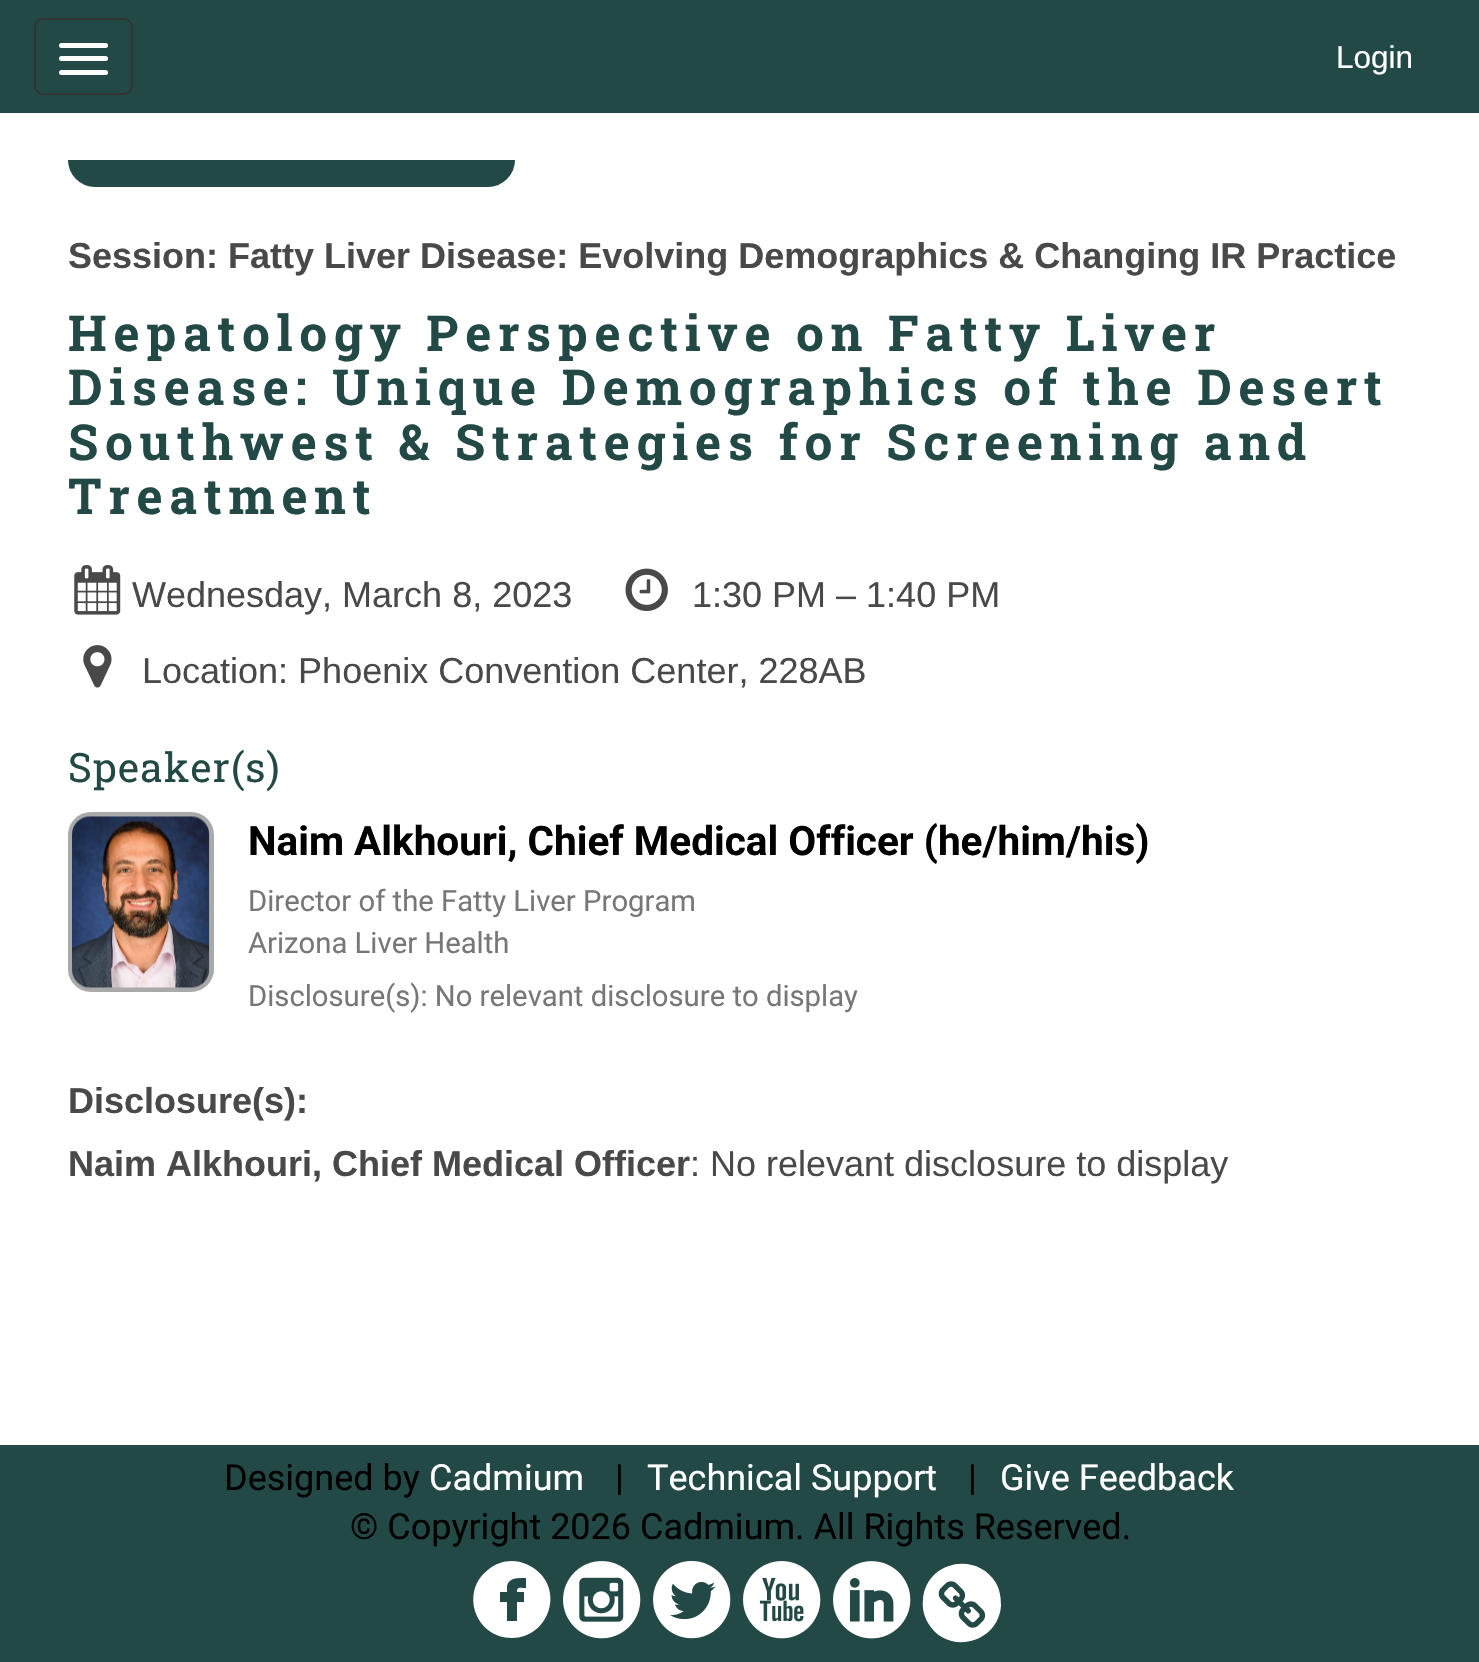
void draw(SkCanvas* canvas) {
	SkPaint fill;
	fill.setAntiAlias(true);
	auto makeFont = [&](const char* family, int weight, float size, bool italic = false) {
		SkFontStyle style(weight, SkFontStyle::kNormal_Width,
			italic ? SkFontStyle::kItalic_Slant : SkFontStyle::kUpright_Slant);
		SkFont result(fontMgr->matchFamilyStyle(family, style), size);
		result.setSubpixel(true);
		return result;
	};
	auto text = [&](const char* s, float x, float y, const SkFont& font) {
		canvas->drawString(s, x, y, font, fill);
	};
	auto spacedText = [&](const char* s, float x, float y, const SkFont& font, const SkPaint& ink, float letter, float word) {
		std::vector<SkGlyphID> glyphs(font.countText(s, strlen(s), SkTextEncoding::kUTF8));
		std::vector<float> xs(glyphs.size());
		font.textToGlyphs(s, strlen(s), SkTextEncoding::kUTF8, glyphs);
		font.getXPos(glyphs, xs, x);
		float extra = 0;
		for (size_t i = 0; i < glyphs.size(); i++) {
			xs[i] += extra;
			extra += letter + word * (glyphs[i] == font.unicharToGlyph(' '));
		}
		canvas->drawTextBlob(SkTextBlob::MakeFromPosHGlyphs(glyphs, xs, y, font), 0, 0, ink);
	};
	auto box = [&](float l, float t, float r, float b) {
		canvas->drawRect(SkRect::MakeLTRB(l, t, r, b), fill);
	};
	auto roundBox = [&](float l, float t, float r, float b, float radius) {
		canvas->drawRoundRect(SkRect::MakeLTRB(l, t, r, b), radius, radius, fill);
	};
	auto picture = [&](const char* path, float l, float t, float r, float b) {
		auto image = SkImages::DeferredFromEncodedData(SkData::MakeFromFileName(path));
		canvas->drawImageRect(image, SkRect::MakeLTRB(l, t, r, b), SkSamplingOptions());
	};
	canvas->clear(0xFFFFFFFF);
	fill.setColor(0xFF224945);
	box(0, 0, 1479, 113);
	fill.setStyle(SkPaint::kStroke_Style);
	fill.setStrokeWidth(2);
	fill.setColor(0xFF333333);
	canvas->drawRoundRect(SkRect::MakeLTRB(35, 19, 132, 94), 8, 8, fill);
	fill.setStyle(SkPaint::kFill_Style);
	fill.setColor(0xFFFFFFFF);
	roundBox(59, 43, 108, 48, 2.5f);
	roundBox(59, 56, 108, 61, 2.5f);
	roundBox(59, 70, 108, 75, 2.5f);
	fill.setColor(0xFF224945);
	roundBox(68, 133, 515, 187, 27);
	fill.setColor(0xFFFFFFFF);
	box(68, 133, 515, 160);
	picture("image0.png", 74, 565, 121, 615);
	picture("image1.png", 625, 568, 668, 611);
	picture("image2.png", 83, 645, 112, 688);
	fill.setStyle(SkPaint::kStroke_Style);
	fill.setStrokeWidth(5);
	fill.setColor(0xFFA9A9A9);
	canvas->drawRoundRect(SkRect::MakeLTRB(70.5f, 814.5f, 211.5f, 989.5f), 20.5f, 20.5f, fill);
	picture("image3.png", 72, 816, 210, 988);
	fill.setStyle(SkPaint::kFill_Style);
	fill.setColor(0xFF224945);
	box(0, 1445, 1479, 1662);
	fill.setColor(0xFFFFFFFF);
	canvas->drawPath(SkPathBuilder().moveTo(512, 1561).cubicTo(520, 1561, 528, 1564, 535, 1569).cubicTo(565, 1591, 548, 1638, 512, 1638).cubicTo(475, 1638, 459, 1591, 489, 1569).cubicTo(495, 1564, 503, 1561, 512, 1561).close().moveTo(526, 1578).cubicTo(519, 1578, 509, 1577, 507, 1586).lineTo(507, 1592).lineTo(500, 1592).lineTo(500, 1602).lineTo(507, 1602).lineTo(507, 1621).lineTo(517, 1621).lineTo(517, 1602).lineTo(524, 1602).lineTo(524, 1592).lineTo(517, 1592).cubicTo(517, 1586, 520, 1588, 526, 1588).close().detach(), fill);
	picture("image4.png", 563, 1561, 641, 1639);
	picture("image5.png", 653, 1561, 731, 1639);
	picture("image6.png", 743, 1561, 821, 1639);
	picture("image7.png", 833, 1561, 911, 1639);
	canvas->drawPath(SkPathBuilder().moveTo(996, 1583).cubicTo(1000, 1590, 1001, 1598, 1001, 1606).cubicTo(998, 1644, 947, 1656, 928, 1623).cubicTo(924, 1616, 922, 1608, 923, 1600).cubicTo(925, 1562, 976, 1550, 996, 1583).close().detach(), fill);
	picture("image8.png", 938, 1581, 986, 1628);
	auto font1 = makeFont("Liberation Sans", 400, 31.5f);
	text("Login", 1336, 68, font1);
	auto font2 = makeFont("Liberation Sans", 700, 36);
	fill.setColor(0xFF494949);
	text("Session: Fatty Liver Disease: Evolving Demographics & Changing IR Practice", 68, 268, font2);
	auto font3 = makeFont("Roboto Slab", 700, 49.5f);
	fill.setColor(0xFF224945);
	spacedText("Hepatology Perspective on Fatty Liver", 68, 351, font3, fill, 6.75f, 0);
	spacedText("Disease: Unique Demographics of the Desert", 68, 405, font3, fill, 6.75f, 0);
	spacedText("Southwest & Strategies for Screening and", 68, 460, font3, fill, 6.75f, 0);
	spacedText("Treatment", 68, 514, font3, fill, 6.75f, 0);
	auto font4 = makeFont("Liberation Sans", 400, 36);
	fill.setColor(0xFF494949);
	text("Wednesday, March 8, 2023", 132, 607, font4);
	text("1:30 PM – 1:40 PM", 692, 607, font4);
	text("Location: Phoenix Convention Center, 228AB", 142, 683, font4);
	auto font5 = makeFont("Roboto Slab", 400, 40.5f);
	fill.setColor(0xFF224945);
	spacedText("Speaker(s)", 68, 782, font5, fill, 1.25f, 0);
	auto font6 = makeFont("Roboto", 700, 40.5f);
	fill.setColor(0xFF000000);
	text("Naim Alkhouri, Chief Medical Officer (he/him/his)", 248, 855, font6);
	auto font7 = makeFont("Roboto", 400, 29.25f);
	fill.setColor(0xFF777777);
	text("Director of the Fatty Liver Program", 248, 911, font7);
	text("Arizona Liver Health", 248, 953, font7);
	text("Disclosure(s): No relevant disclosure to display", 248, 1006, font7);
	fill.setColor(0xFF494949);
	text("Disclosure(s):", 68, 1113, font2);
	text("Naim Alkhouri, Chief Medical Officer", 68, 1176, font2);
	text(": No relevant disclosure to display", 690, 1176, font4);
	auto font8 = makeFont("Roboto", 400, 36);
	fill.setColor(0xFF000000);
	text("Designed by", 224, 1490, font8);
	fill.setColor(0xFFFFFFFF);
	text("Cadmium", 429, 1490, font8);
	fill.setColor(0xFF000000);
	text("|", 615, 1490, font8);
	fill.setColor(0xFFFFFFFF);
	text("Technical Support", 647, 1490, font8);
	fill.setColor(0xFF000000);
	text("|", 968, 1490, font8);
	fill.setColor(0xFFFFFFFF);
	text("Give Feedback", 1000, 1490, font8);
	fill.setColor(0xFF000000);
	text("© Copyright 2026 Cadmium. All Rights Reserved.", 350, 1539, font8);
}
